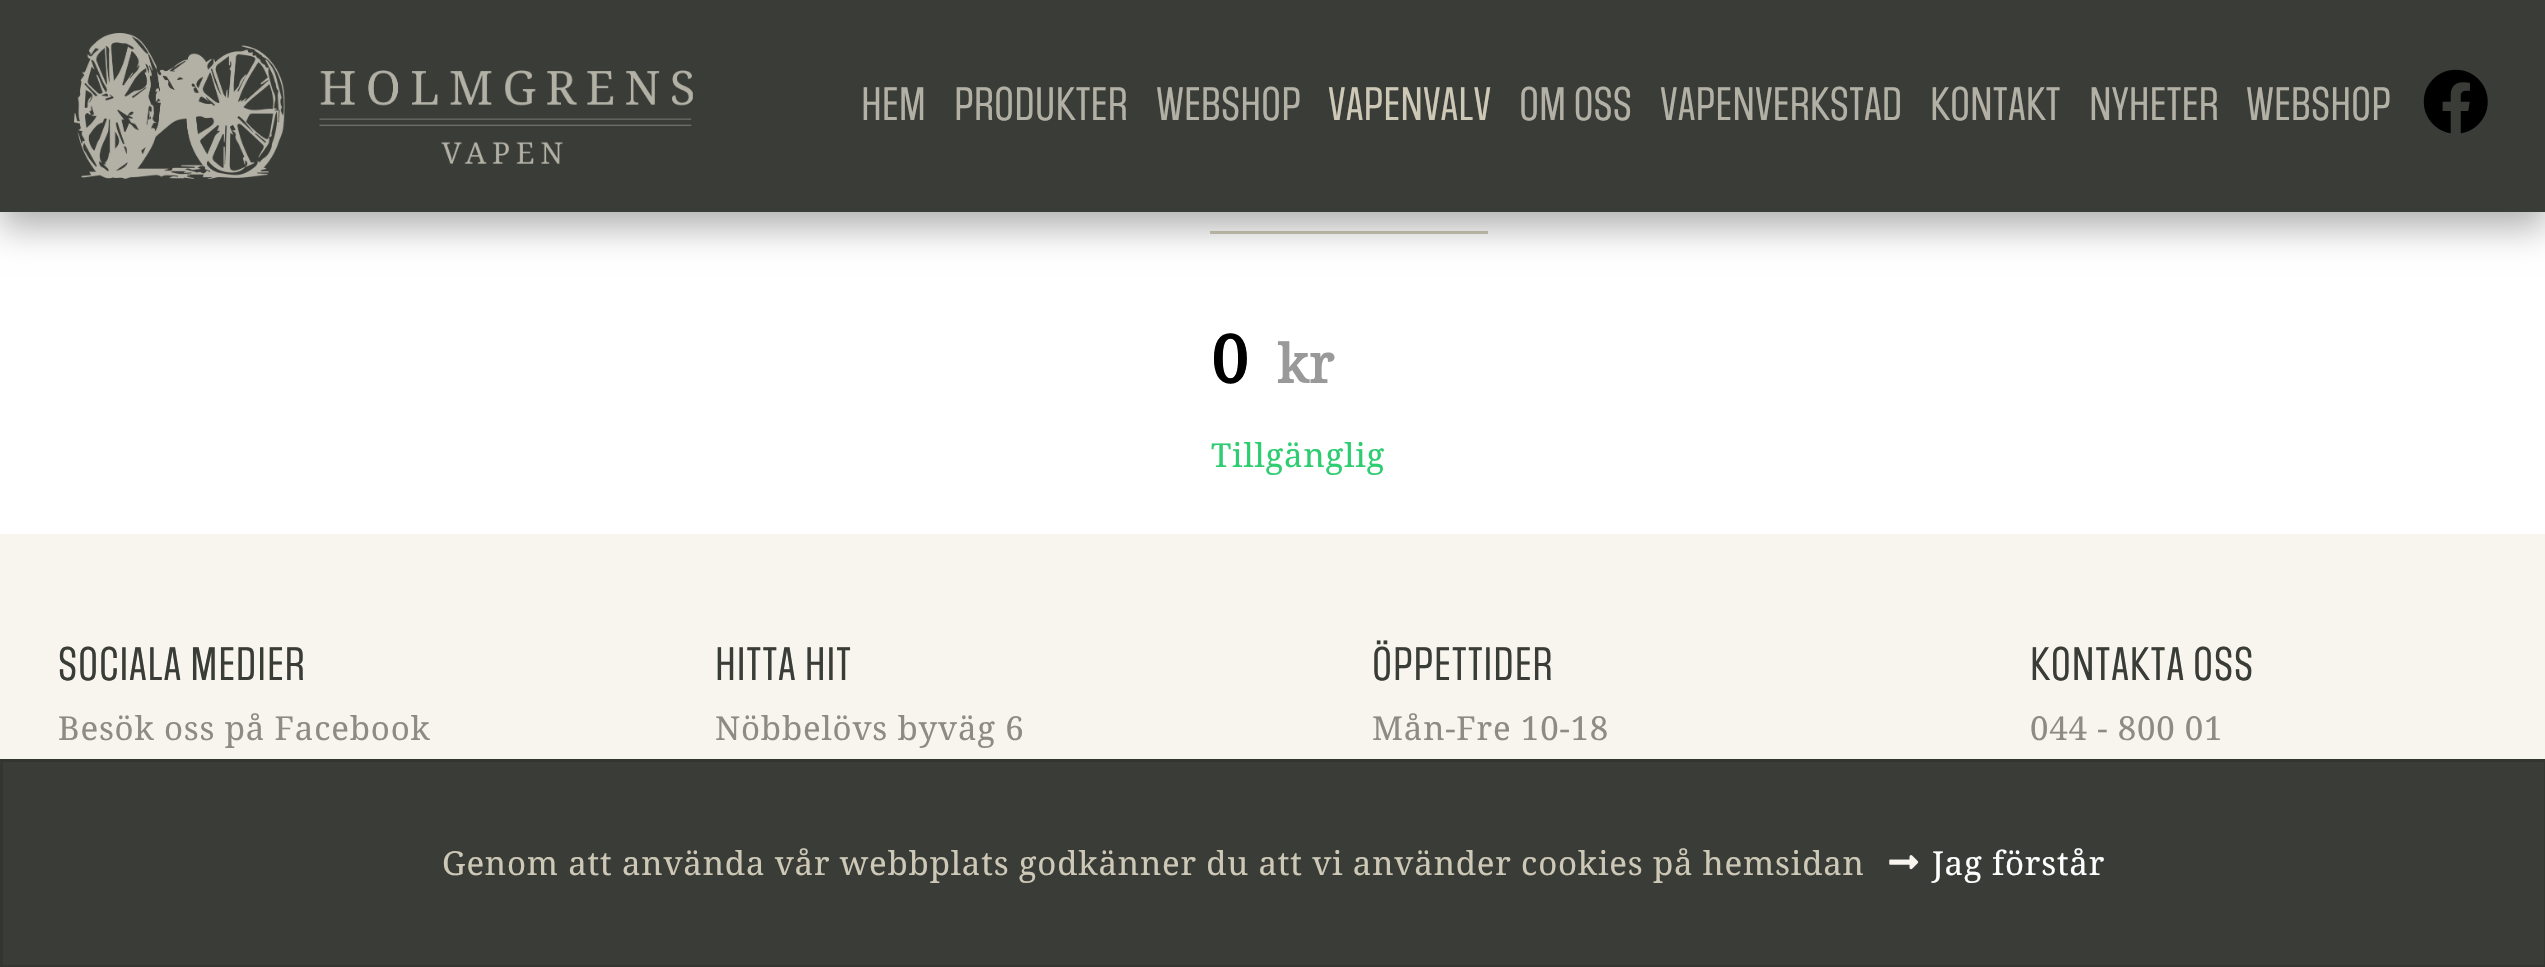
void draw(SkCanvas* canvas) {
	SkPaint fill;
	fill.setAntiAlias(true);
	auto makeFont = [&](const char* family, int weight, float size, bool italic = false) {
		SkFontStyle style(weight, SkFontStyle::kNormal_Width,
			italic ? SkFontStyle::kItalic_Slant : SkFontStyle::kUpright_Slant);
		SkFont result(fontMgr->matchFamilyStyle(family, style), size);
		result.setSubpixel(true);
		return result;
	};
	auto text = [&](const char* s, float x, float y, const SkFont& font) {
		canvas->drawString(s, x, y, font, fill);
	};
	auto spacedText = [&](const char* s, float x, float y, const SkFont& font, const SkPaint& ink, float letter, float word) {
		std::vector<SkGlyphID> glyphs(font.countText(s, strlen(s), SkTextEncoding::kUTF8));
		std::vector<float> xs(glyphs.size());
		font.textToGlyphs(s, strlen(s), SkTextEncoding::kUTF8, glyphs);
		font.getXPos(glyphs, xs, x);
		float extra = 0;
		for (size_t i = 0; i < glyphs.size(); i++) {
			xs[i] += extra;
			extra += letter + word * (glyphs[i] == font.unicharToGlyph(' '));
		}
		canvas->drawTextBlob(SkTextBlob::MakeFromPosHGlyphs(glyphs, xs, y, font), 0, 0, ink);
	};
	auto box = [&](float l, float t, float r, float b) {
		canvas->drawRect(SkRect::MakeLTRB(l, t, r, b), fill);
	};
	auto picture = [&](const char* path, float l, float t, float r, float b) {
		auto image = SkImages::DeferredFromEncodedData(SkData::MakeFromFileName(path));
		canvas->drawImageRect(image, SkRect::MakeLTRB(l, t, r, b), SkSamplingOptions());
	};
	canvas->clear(0xFFFFFFFF);
	fill.setColor(0xFFCEC9B7);
	box(1210, 231, 1488, 234);
	fill.setColor(0x4D000000);
	fill.setMaskFilter(SkMaskFilter::MakeBlur(kNormal_SkBlurStyle, 16.5f));
	canvas->drawRect(SkRect::MakeLTRB(0, 17, 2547, 228), fill);
	fill.setMaskFilter(nullptr);
	fill.setColor(0xFF3A3C37);
	box(0, 0, 2545, 212);
	picture("image0.png", 74, 33, 693, 179);
	picture("image1.png", 2423, 69, 2488, 134);
	fill.setColor(0xFFF7F5ED);
	box(0, 534, 2545, 759);
	fill.setColor(0xFF3A3C37);
	canvas->drawRect(SkRect::MakeLTRB(1.5f, 760.5f, 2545.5f, 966.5f), fill);
	fill.setStyle(SkPaint::kStroke_Style);
	fill.setStrokeWidth(3);
	fill.setColor(0xFF333530);
	canvas->drawRect(SkRect::MakeLTRB(1.5f, 760.5f, 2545.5f, 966.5f), fill);
	picture("image2.png", 1889, 855, 1919, 870);
	auto font1 = makeFont("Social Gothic", 400, 39.5f);
	fill.setStyle(SkPaint::kFill_Style);
	fill.setColor(0xFFB3B1A6);
	text("HEM", 861, 120, font1);
	text("PRODUKTER", 954, 120, font1);
	text("WEBSHOP", 1156, 120, font1);
	fill.setColor(0xFFCEC9B7);
	text("VAPENVALV", 1328, 120, font1);
	fill.setColor(0xFFB3B1A6);
	text("OM OSS", 1519, 120, font1);
	text("VAPENVERKSTAD", 1660, 120, font1);
	text("KONTAKT", 1930, 120, font1);
	text("NYHETER", 2089, 120, font1);
	text("WEBSHOP", 2246, 120, font1);
	auto font2 = makeFont("Droid Serif", 700, 66);
	fill.setColor(0xFF000000);
	spacedText("0", 1211, 383, font2, fill, 0.82f, 0);
	auto font3 = makeFont("Droid Serif", 700, 53);
	fill.setColor(0xFF999999);
	spacedText("kr", 1277, 383, font3, fill, 0.82f, 0);
	auto font4 = makeFont("Droid Serif", 400, 33);
	fill.setColor(0xFF2ECD71);
	spacedText("Tillgänglig", 1211, 467, font4, fill, 0.82f, 0);
	fill.setColor(0xFF3A3C37);
	spacedText("SOCIALA MEDIER", 58, 680, font1, fill, 0.82f, 0);
	fill.setColor(0xFF8C8B84);
	spacedText("Besök oss på Facebook", 58, 740, font4, fill, 0.82f, 0);
	fill.setColor(0xFF3A3C37);
	spacedText("HITTA HIT", 715, 680, font1, fill, 0.82f, 0);
	fill.setColor(0xFF8C8B84);
	spacedText("Nöbbelövs byväg 6", 715, 740, font4, fill, 0.82f, 0);
	fill.setColor(0xFF3A3C37);
	spacedText("ÖPPETTIDER", 1372, 680, font1, fill, 0.82f, 0);
	fill.setColor(0xFF8C8B84);
	spacedText("Mån-Fre 10-18", 1372, 740, font4, fill, 0.82f, 0);
	fill.setColor(0xFF3A3C37);
	spacedText("KONTAKTA OSS", 2030, 680, font1, fill, 0.82f, 0);
	fill.setColor(0xFF8C8B84);
	spacedText("044 - 800 01", 2030, 740, font4, fill, 0.82f, 0);
	fill.setColor(0xFFCEC9B7);
	spacedText("Genom att använda vår webbplats godkänner du att vi använder cookies på hemsidan", 442, 875, font4, fill, 0.82f, 0);
	fill.setColor(0xFFFFFFFF);
	spacedText("Jag förstår", 1932, 875, font4, fill, 0.82f, 0);
}
